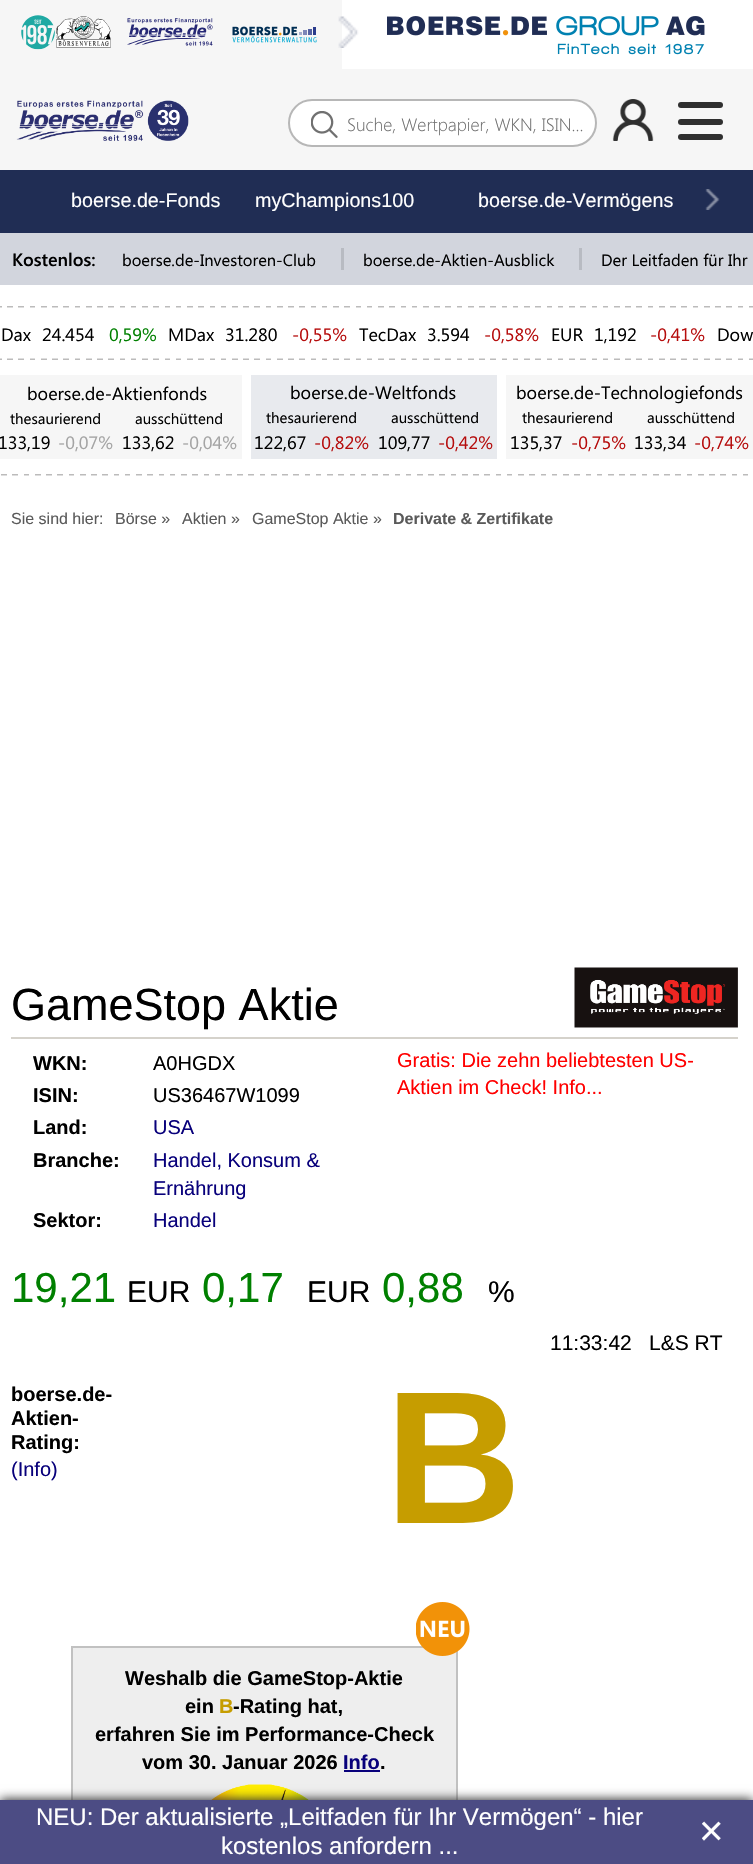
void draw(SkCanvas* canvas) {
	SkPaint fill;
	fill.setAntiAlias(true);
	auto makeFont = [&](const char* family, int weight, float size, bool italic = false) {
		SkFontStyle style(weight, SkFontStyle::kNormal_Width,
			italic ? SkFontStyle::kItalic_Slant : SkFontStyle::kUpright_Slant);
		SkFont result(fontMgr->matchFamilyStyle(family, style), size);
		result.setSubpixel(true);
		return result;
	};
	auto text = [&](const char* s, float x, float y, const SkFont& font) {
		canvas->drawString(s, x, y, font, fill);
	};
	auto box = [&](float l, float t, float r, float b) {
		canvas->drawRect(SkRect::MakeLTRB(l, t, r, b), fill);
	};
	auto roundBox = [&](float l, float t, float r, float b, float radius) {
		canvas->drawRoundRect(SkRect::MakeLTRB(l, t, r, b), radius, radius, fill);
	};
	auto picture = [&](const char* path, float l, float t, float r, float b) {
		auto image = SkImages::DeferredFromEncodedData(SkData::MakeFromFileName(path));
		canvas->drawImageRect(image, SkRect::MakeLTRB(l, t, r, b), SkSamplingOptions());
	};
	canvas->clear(0xFFFFFFFF);
	fill.setColor(0xFFF6F6F6);
	box(0, 0, 342, 69);
	picture("image0.png", 21, 15, 111, 50);
	picture("image1.png", 127, 18, 213, 46);
	picture("image2.png", 232, 26, 317, 43);
	picture("image3.png", 338, 16, 359, 48);
	picture("image4.png", 387, 16, 705, 55);
	box(0, 69, 753, 170);
	picture("image5.png", 16, 100, 189, 141);
	fill.setColor(0xFFFFFFFF);
	canvas->drawRoundRect(SkRect::MakeLTRB(289, 100, 596, 146), 23, 23, fill);
	fill.setStyle(SkPaint::kStroke_Style);
	fill.setStrokeWidth(2);
	fill.setColor(0xFFB7B7B7);
	canvas->drawRoundRect(SkRect::MakeLTRB(289, 100, 596, 146), 23, 23, fill);
	picture("image6.png", 311, 111, 338, 138);
	picture("image7.png", 612, 99, 654, 141);
	fill.setStyle(SkPaint::kFill_Style);
	fill.setColor(0xFF2F2F2F);
	roundBox(678, 102, 723, 108, 3);
	roundBox(678, 119, 723, 125, 3);
	roundBox(678, 134, 723, 140, 3);
	fill.setColor(0xFF202D54);
	box(0, 170, 753, 233);
	picture("image8.png", 705, 189, 720, 210);
	fill.setColor(0xFFD2D5DD);
	box(0, 233, 753, 285);
	fill.setColor(0xFFB8BBC2);
	box(341, 248, 344, 270);
	box(579, 248, 582, 270);
	picture("image9.png", 0, 306, 753, 360);
	picture("image10.png", 1, 474, 748, 476);
	fill.setColor(0xFFF6F6F6);
	box(0, 375, 242, 459);
	fill.setColor(0xFFE8EAEE);
	box(251, 375, 497, 459);
	fill.setColor(0xFFF6F6F6);
	box(506, 375, 753, 459);
	fill.setColor(0xFFD5D2CB);
	box(11, 1037, 738, 1039);
	picture("image11.png", 574, 967, 738, 1028);
	fill.setColor(0xFFEEEEEE);
	box(73, 1648, 456, 1800);
	fill.setStyle(SkPaint::kStroke_Style);
	fill.setColor(0xFFC1C1C1);
	canvas->drawRect(SkRect::MakeLTRB(72, 1647, 457, 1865), fill);
	picture("image12.png", 416, 1602, 470, 1656);
	fill.setStyle(SkPaint::kFill_Style);
	fill.setColor(0xFF08007B);
	box(344, 1770, 380, 1772);
	picture("image14.png", 211, 1784, 309, 1800);
	picture("image15.png", 281, 1789, 286, 1800);
	fill.setColor(0xFF323232);
	fill.setMaskFilter(SkMaskFilter::MakeBlur(kNormal_SkBlurStyle, 5));
	canvas->drawRect(SkRect::MakeLTRB(0, 1799, 753, 1863), fill);
	fill.setMaskFilter(nullptr);
	fill.setColor(0xFF4C4C84);
	box(0, 1800, 753, 1864);
	auto font1 = makeFont("Segoe UI", 300, 18);
	fill.setColor(0xFF707070);
	text("Suche, Wertpapier, WKN, ISIN...", 347, 131, font1);
	auto font2 = makeFont("Liberation Sans", 400, 19.75f);
	fill.setColor(0xFFFFFFFF);
	text("boerse.de-Fonds", 71, 207, font2);
	text("myChampions100", 255, 207, font2);
	text("boerse.de-Vermögens", 478, 207, font2);
	auto font3 = makeFont("Segoe UI", 600, 18);
	fill.setColor(0xFF000000);
	text("Kostenlos:", 12, 266, font3);
	auto font4 = makeFont("Segoe UI", 400, 16.5f);
	text("boerse.de-Investoren-Club", 122, 266, font4);
	text("boerse.de-Aktien-Ausblick", 363, 266, font4);
	text("Der Leitfaden für Ihr", 601, 266, font4);
	auto font5 = makeFont("Segoe UI", 400, 18);
	text("Dax", 1, 341, font5);
	text("24.454", 42, 341, font5);
	fill.setColor(0xFF008000);
	text("0,59%", 109, 341, font5);
	fill.setColor(0xFF000000);
	text("MDax", 168, 341, font5);
	text("31.280", 225, 341, font5);
	fill.setColor(0xFFB60D0D);
	text("-0,55%", 292, 341, font5);
	fill.setColor(0xFF000000);
	text("TecDax", 359, 341, font5);
	text("3.594", 427, 341, font5);
	fill.setColor(0xFFB60D0D);
	text("-0,58%", 484, 341, font5);
	fill.setColor(0xFF000000);
	text("EUR", 551, 341, font5);
	text("1,192", 594, 341, font5);
	fill.setColor(0xFFB60D0D);
	text("-0,41%", 650, 341, font5);
	fill.setColor(0xFF000000);
	text("Dow", 717, 341, font5);
	text("boerse.de-Aktienfonds", 27, 400, font5);
	auto font6 = makeFont("Segoe UI", 400, 15);
	text("thesaurierend", 10, 424, font6);
	text("133,19", -2, 449, font5);
	fill.setColor(0xFFA4A4A4);
	text("-0,07%", 58, 449, font5);
	fill.setColor(0xFF000000);
	text("ausschüttend", 135, 424, font6);
	text("133,62", 122, 449, font5);
	fill.setColor(0xFFA4A4A4);
	text("-0,04%", 182, 449, font5);
	fill.setColor(0xFF000000);
	text("boerse.de-Weltfonds", 290, 399, font5);
	text("thesaurierend", 266, 423, font6);
	text("122,67", 254, 449, font5);
	fill.setColor(0xFFB60D0D);
	text("-0,82%", 314, 449, font5);
	fill.setColor(0xFF000000);
	text("ausschüttend", 391, 423, font6);
	text("109,77", 378, 449, font5);
	fill.setColor(0xFFB60D0D);
	text("-0,42%", 438, 449, font5);
	fill.setColor(0xFF000000);
	text("boerse.de-Technologiefonds", 516, 399, font5);
	text("thesaurierend", 522, 423, font6);
	text("135,37", 510, 449, font5);
	fill.setColor(0xFFB60D0D);
	text("-0,75%", 571, 449, font5);
	fill.setColor(0xFF000000);
	text("ausschüttend", 647, 423, font6);
	text("133,34", 634, 449, font5);
	fill.setColor(0xFFB60D0D);
	text("-0,74%", 694, 449, font5);
	auto font7 = makeFont("Liberation Sans", 400, 16);
	fill.setColor(0xFF5A5A5A);
	text("Sie sind hier:", 11, 524, font7);
	text("Börse »", 115, 524, font7);
	text("Aktien »", 182, 524, font7);
	text("GameStop Aktie »", 252, 524, font7);
	auto font8 = makeFont("Liberation Sans", 700, 16);
	text("Derivate & Zertifikate", 393, 524, font8);
	auto font9 = makeFont("Liberation Sans", 400, 45);
	fill.setColor(0xFF000000);
	text("GameStop Aktie", 11, 1020, font9);
	auto font10 = makeFont("Liberation Sans", 700, 20);
	text("WKN:", 33, 1070, font10);
	auto font11 = makeFont("Liberation Sans", 400, 20);
	text("A0HGDX", 153, 1070, font11);
	text("ISIN:", 33, 1102, font10);
	text("US36467W1099", 153, 1102, font11);
	text("Land:", 33, 1134, font10);
	fill.setColor(0xFF08007B);
	text("USA", 153, 1134, font11);
	fill.setColor(0xFF000000);
	text("Branche:", 33, 1167, font10);
	fill.setColor(0xFF08007B);
	text("Handel, Konsum &", 153, 1167, font11);
	text("Ernährung", 153, 1195, font11);
	fill.setColor(0xFF000000);
	text("Sektor:", 33, 1227, font10);
	fill.setColor(0xFF08007B);
	text("Handel", 153, 1227, font11);
	fill.setColor(0xFFFF0000);
	text("Gratis: Die zehn beliebtesten US-", 397, 1067, font11);
	text("Aktien im Check! Info...", 397, 1094, font11);
	auto font12 = makeFont("Liberation Sans", 400, 42);
	fill.setColor(0xFF008000);
	text("19,21", 11, 1302, font12);
	auto font13 = makeFont("Liberation Sans", 400, 30);
	fill.setColor(0xFF000000);
	text("EUR", 127, 1302, font13);
	fill.setColor(0xFF008000);
	text("0,17", 202, 1302, font12);
	fill.setColor(0xFF000000);
	text("EUR", 307, 1302, font13);
	fill.setColor(0xFF008000);
	text("0,88", 382, 1302, font12);
	fill.setColor(0xFF000000);
	text("%", 488, 1302, font13);
	auto font14 = makeFont("Liberation Sans", 400, 21);
	text("11:33:42", 550, 1350, font14);
	text("L&S RT", 649, 1350, font14);
	text("boerse.de-", 11, 1401, font10);
	text("Aktien-", 11, 1425, font10);
	text("Rating:", 11, 1449, font10);
	fill.setColor(0xFF08007B);
	text("(Info)", 11, 1476, font11);
	auto font15 = makeFont("Liberation Sans", 700, 189);
	fill.setColor(0xFFC69D00);
	text("B", 385, 1523, font15);
	fill.setColor(0xFF000000);
	text("Weshalb die GameStop-Aktie", 125, 1685, font10);
	text("ein", 185, 1713, font10);
	fill.setColor(0xFFC69D00);
	text("B", 219, 1713, font10);
	fill.setColor(0xFF000000);
	text("-Rating hat,", 233, 1713, font10);
	text("erfahren Sie im Performance-Check", 95, 1741, font10);
	text("vom 30. Januar 2026", 142, 1769, font10);
	fill.setColor(0xFF08007B);
	text("Info", 343, 1769, font10);
	fill.setColor(0xFF000000);
	text(".", 380, 1769, font10);
	picture("image13.png", 259, 1761, 261, 1762);
	auto font16 = makeFont("Liberation Sans", 400, 24);
	fill.setColor(0xFFFFFFFF);
	text("NEU: Der aktualisierte „Leitfaden für Ihr Vermögen“ - hier", 36, 1825, font16);
	text("kostenlos anfordern ...", 221, 1854, font16);
	text("×", 699, 1845, font12);
}
